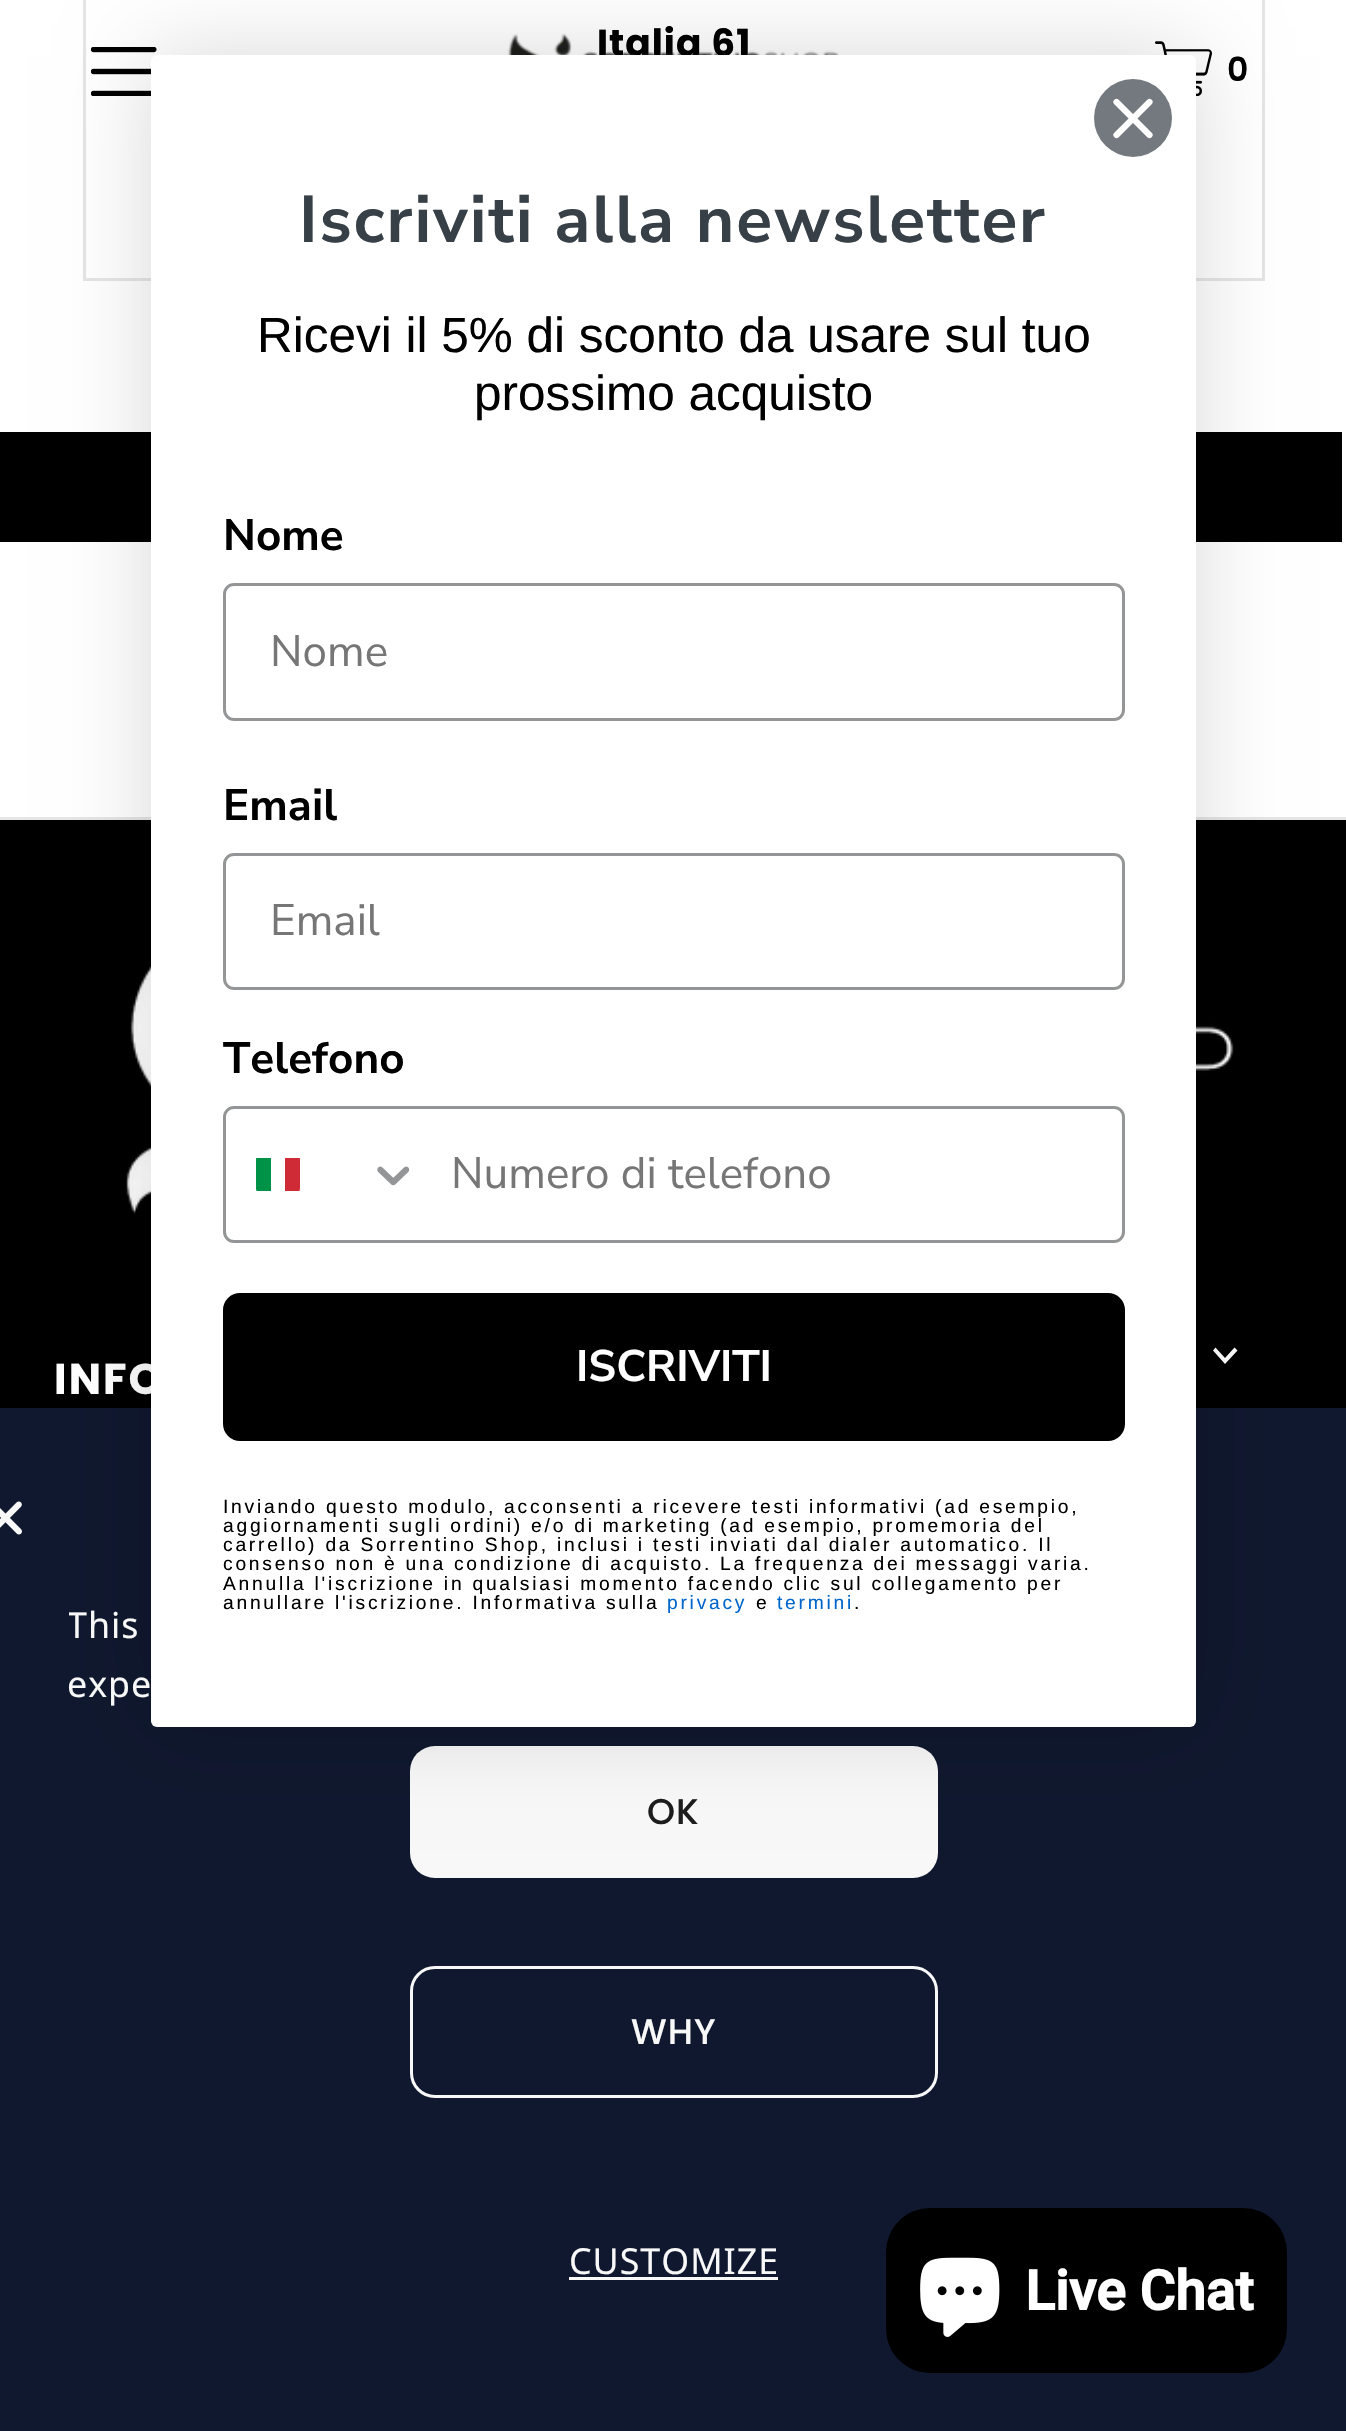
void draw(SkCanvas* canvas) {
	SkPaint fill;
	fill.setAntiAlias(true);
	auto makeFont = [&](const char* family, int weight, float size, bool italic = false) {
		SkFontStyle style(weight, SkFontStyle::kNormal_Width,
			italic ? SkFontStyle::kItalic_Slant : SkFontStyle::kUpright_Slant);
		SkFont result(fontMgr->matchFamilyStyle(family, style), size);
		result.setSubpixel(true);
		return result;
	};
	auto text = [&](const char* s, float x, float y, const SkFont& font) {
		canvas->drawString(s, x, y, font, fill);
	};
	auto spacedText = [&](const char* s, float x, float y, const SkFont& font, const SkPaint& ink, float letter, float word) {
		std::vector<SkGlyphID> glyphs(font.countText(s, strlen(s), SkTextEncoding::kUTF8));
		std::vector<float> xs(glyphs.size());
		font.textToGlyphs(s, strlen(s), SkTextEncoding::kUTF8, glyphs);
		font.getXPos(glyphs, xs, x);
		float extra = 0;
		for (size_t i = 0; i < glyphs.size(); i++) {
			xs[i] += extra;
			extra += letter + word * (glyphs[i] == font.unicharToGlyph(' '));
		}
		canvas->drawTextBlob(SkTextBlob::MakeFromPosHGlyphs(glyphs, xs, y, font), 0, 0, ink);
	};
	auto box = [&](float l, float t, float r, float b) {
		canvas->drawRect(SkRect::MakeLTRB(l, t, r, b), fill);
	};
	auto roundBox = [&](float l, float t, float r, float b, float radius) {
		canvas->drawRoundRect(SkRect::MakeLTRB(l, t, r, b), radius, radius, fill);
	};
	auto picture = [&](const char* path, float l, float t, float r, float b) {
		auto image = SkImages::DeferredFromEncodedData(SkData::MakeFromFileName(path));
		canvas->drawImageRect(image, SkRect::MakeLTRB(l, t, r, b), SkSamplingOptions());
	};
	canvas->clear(0xFFFFFFFF);
	fill.setStyle(SkPaint::kStroke_Style);
	fill.setStrokeWidth(3);
	fill.setColor(0xFFE5E5E5);
	canvas->drawRect(SkRect::MakeLTRB(84.5f, -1.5f, 1263.5f, 279.5f), fill);
	fill.setStyle(SkPaint::kFill_Style);
	fill.setColor(0xFF000000);
	box(0, 432, 151, 542);
	box(1196, 432, 1342, 542);
	picture("image1.png", 91, 47, 157, 96);
	picture("image2.png", 1155, 41, 1212, 96);
	box(0, 820, 1346, 1408);
	fill.setColor(0xFFE5E5E5);
	box(0, 817, 1346, 820);
	picture("image3.png", 126, 965, 1234, 1214);
	fill.setColor(0xFFFFFFFF);
	canvas->drawPath(SkPathBuilder().moveTo(1234.5f, 1347.5f).lineTo(1225, 1358).lineTo(1215.5f, 1347.5f).lineTo(1213, 1350.5f).lineTo(1225, 1364).lineTo(1237.5f, 1350.5f).close().detach(), fill);
	fill.setColor(0xFF10182F);
	box(0, 1408, 1346, 2431);
	picture("image5.png", 0, 1501, 22, 1535);
	fill.setColor(0xFFF8F8F8);
	roundBox(410, 1746, 938, 1878, 25);
	fill.setStyle(SkPaint::kStroke_Style);
	canvas->drawRoundRect(SkRect::MakeLTRB(411.5f, 1967.5f, 936.5f, 2096.5f), 23.5f, 23.5f, fill);
	fill.setStyle(SkPaint::kFill_Style);
	box(569, 2277, 778, 2280);
	fill.setColor(0xFF000000);
	roundBox(886, 2208, 1287, 2373, 44);
	picture("image6.png", 920, 2257, 1000, 2337);
	auto font1 = makeFont("Poppins", 700, 37.5f);
	spacedText("Italia 61", 597, 56, font1, fill, 1, 0);
	picture("image0.png", 507, 33, 839, 55);
	auto font2 = makeFont("Poppins", 600, 33);
	spacedText("0", 1227, 81, font2, fill, 1, 0);
	auto font3 = makeFont("Poppins", 700, 43);
	fill.setColor(0xFFFFFFFF);
	spacedText("INFO", 54, 1394, font3, fill, 2, 0);
	fill.setColor(0x26000000);
	fill.setMaskFilter(SkMaskFilter::MakeBlur(kNormal_SkBlurStyle, 41));
	canvas->drawRect(SkRect::MakeLTRB(151, 55, 1196, 1727), fill);
	fill.setMaskFilter(nullptr);
	fill.setColor(0xFFFFFFFF);
	roundBox(151, 55, 1196, 1727, 6);
	fill.setColor(0xFF73797E);
	canvas->drawCircle(1133, 118, 39, fill);
	fill.setStyle(SkPaint::kStroke_Style);
	fill.setStrokeWidth(6.2f);
	fill.setStrokeCap(SkPaint::kRound_Cap);
	fill.setStrokeJoin(SkPaint::kRound_Join);
	fill.setColor(0xFFFFFFFF);
	canvas->drawPath(SkPathBuilder().moveTo(1116.5f, 102).lineTo(1149.5f, 135).moveTo(1116.5f, 135).lineTo(1149.5f, 102).close().detach(), fill);
	auto font4 = makeFont("Nunito Sans", 700, 66);
	fill.setStyle(SkPaint::kFill_Style);
	fill.setColor(0xFF373F47);
	spacedText("Iscriviti alla newsletter", 299, 242, font4, fill, 1.9f, 0);
	auto font5 = makeFont("Liberation Sans", 400, 49.5f);
	fill.setColor(0xFF000000);
	text("Ricevi il 5% di sconto da usare sul tuo", 257, 352, font5);
	text("prossimo acquisto", 474, 410, font5);
	auto font6 = makeFont("Nunito Sans", 700, 44);
	text("Nome", 223, 550, font6);
	fill.setStyle(SkPaint::kStroke_Style);
	fill.setStrokeWidth(3);
	fill.setStrokeCap(SkPaint::kButt_Cap);
	fill.setStrokeJoin(SkPaint::kMiter_Join);
	fill.setColor(0xFF949596);
	canvas->drawRoundRect(SkRect::MakeLTRB(224.5f, 584.5f, 1123.5f, 719.5f), 9.5f, 9.5f, fill);
	auto font7 = makeFont("Nunito Sans", 400, 44);
	fill.setStyle(SkPaint::kFill_Style);
	fill.setColor(0xFF767676);
	text("Nome", 270, 666, font7);
	fill.setColor(0xFF000000);
	text("Email", 223, 820, font6);
	fill.setStyle(SkPaint::kStroke_Style);
	fill.setColor(0xFF949596);
	canvas->drawRoundRect(SkRect::MakeLTRB(224.5f, 854.5f, 1123.5f, 988.5f), 9.5f, 9.5f, fill);
	fill.setStyle(SkPaint::kFill_Style);
	fill.setColor(0xFF767676);
	text("Email", 270, 935, font7);
	fill.setColor(0xFF000000);
	text("Telefono", 223, 1073, font6);
	fill.setStyle(SkPaint::kStroke_Style);
	fill.setColor(0xFF949596);
	canvas->drawRoundRect(SkRect::MakeLTRB(224.5f, 1107.5f, 1123.5f, 1241.5f), 9.5f, 9.5f, fill);
	canvas->save();
	canvas->clipPath(SkPathBuilder().moveTo(264, 1152).lineTo(292, 1152).cubicTo(296.5f, 1152, 300, 1155.5f, 300, 1160).lineTo(300, 1188).cubicTo(300, 1192.5f, 296.5f, 1196, 292, 1196).lineTo(264, 1196).cubicTo(259.5f, 1196, 256, 1192.5f, 256, 1188).lineTo(256, 1160).cubicTo(256, 1155.5f, 259.5f, 1152, 264, 1152).close().detach(), true);
	fill.setStyle(SkPaint::kFill_Style);
	fill.setColor(0xFF009246);
	box(256, 1158, 271, 1191);
	fill.setColor(0xFFCE2B37);
	box(285, 1158, 300, 1191);
	canvas->restore();
	picture("image4.png", 377, 1166, 410, 1186);
	fill.setColor(0xFF767676);
	text("Numero di telefono", 451, 1188, font7);
	fill.setColor(0xFF000000);
	roundBox(223, 1293, 1125, 1441, 17);
	fill.setColor(0xFFFFFFFF);
	text("ISCRIVITI", 576, 1381, font6);
	auto font8 = makeFont("Liberation Sans", 400, 19.25f);
	fill.setColor(0xFF000000);
	spacedText("Inviando questo modulo, acconsenti a ricevere testi informativi (ad esempio,", 223, 1513, font8, fill, 2.75f, 0);
	spacedText("aggiornamenti sugli ordini) e/o di marketing (ad esempio, promemoria del", 223, 1532, font8, fill, 2.75f, 0);
	spacedText("carrello) da Sorrentino Shop, inclusi i testi inviati dal dialer automatico. Il", 223, 1551, font8, fill, 2.75f, 0);
	spacedText("consenso non è una condizione di acquisto. La frequenza dei messaggi varia.", 223, 1570, font8, fill, 2.75f, 0);
	spacedText("Annulla l'iscrizione in qualsiasi momento facendo clic sul collegamento per", 223, 1590, font8, fill, 2.75f, 0);
	spacedText("annullare l'iscrizione. Informativa sulla", 223, 1609, font8, fill, 2.75f, 0);
	fill.setColor(0xFF0066CC);
	spacedText("privacy", 667, 1609, font8, fill, 2.75f, 0);
	fill.setColor(0xFF000000);
	spacedText("e", 756, 1609, font8, fill, 2.75f, 0);
	fill.setColor(0xFF0066CC);
	spacedText("termini", 777, 1609, font8, fill, 2.75f, 0);
	fill.setColor(0xFF000000);
	spacedText(".", 854, 1609, font8, fill, 2.75f, 0);
	canvas->save();
	canvas->clipRect(SkRect::MakeLTRB(69, 1595, 1282, 1716));
	auto font9 = makeFont("Noto Sans", 400, 35.75f);
	fill.setColor(0xFFF8F8F8);
	spacedText("This", 67, 1638, font9, fill, 1, 0);
	canvas->restore();
	spacedText("expe", 67, 1697, font9, fill, 1, 0);
	auto font10 = makeFont("Poppins", 500, 35.75f);
	fill.setColor(0xFF1D1D1D);
	spacedText("OK", 647, 1824, font10, fill, 1, 0);
	fill.setColor(0xFFF8F8F8);
	spacedText("WHY", 631, 2044, font10, fill, 1, 0);
	spacedText("CUSTOMIZE", 569, 2274, font9, fill, 1, 0);
	auto font11 = makeFont("Roboto", 700, 55);
	fill.setColor(0xFFFFFFFF);
	text("Live Chat", 1025, 2310, font11);
}
